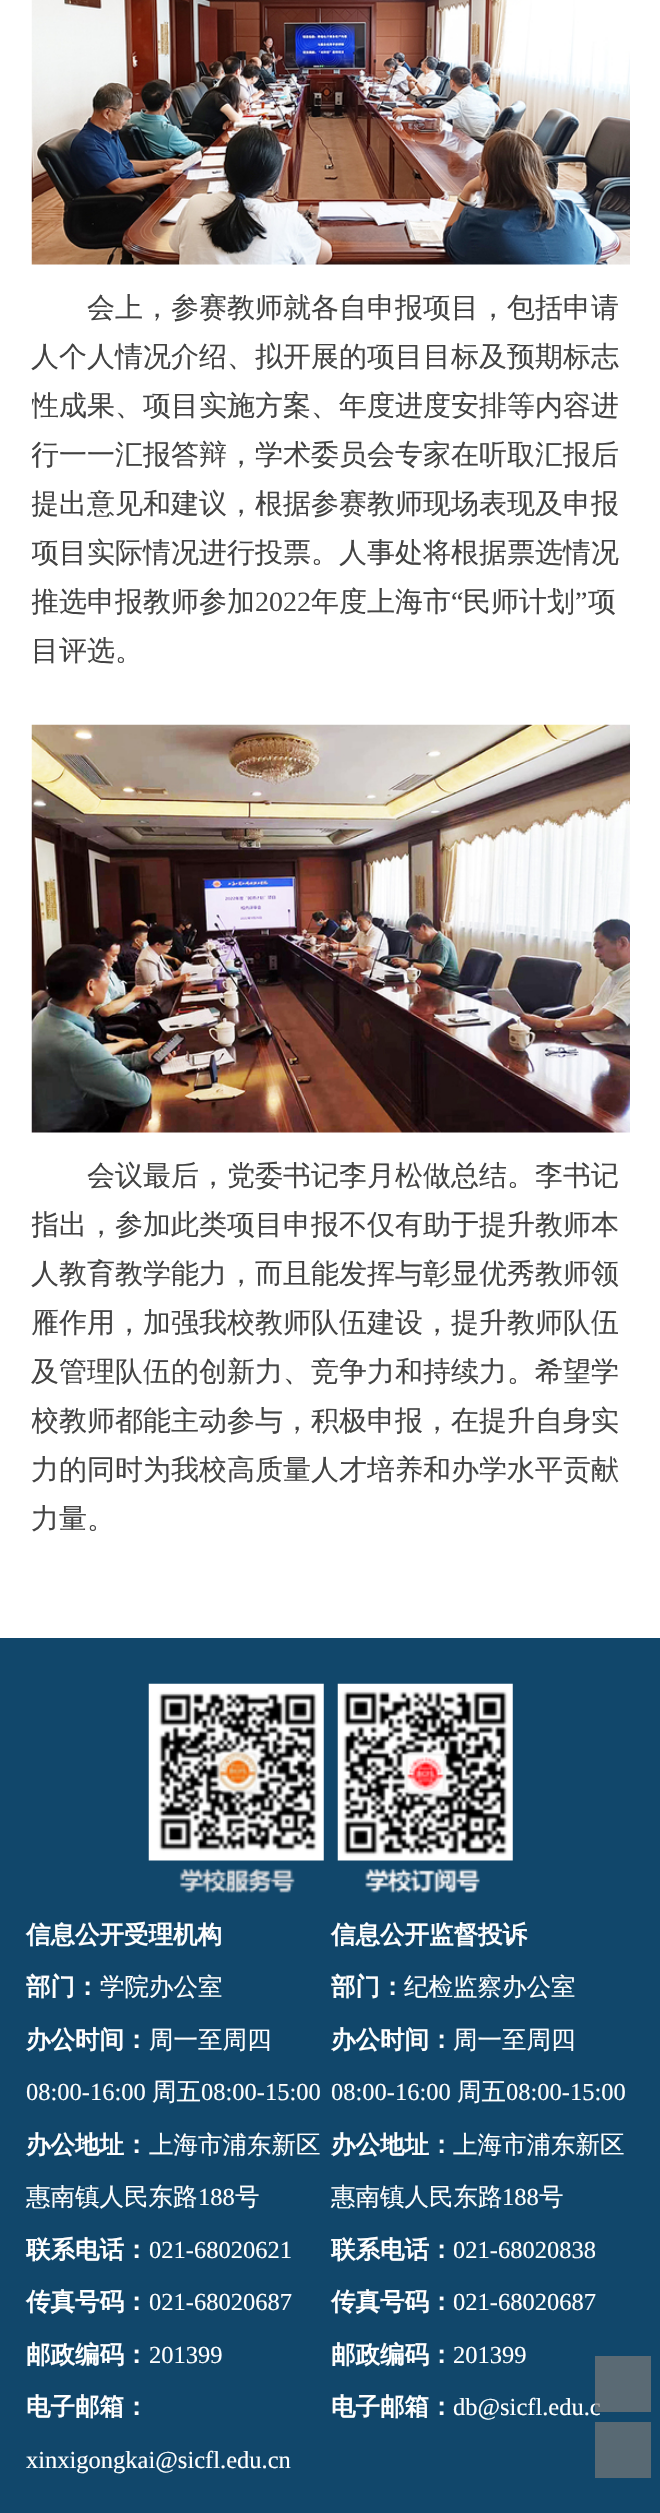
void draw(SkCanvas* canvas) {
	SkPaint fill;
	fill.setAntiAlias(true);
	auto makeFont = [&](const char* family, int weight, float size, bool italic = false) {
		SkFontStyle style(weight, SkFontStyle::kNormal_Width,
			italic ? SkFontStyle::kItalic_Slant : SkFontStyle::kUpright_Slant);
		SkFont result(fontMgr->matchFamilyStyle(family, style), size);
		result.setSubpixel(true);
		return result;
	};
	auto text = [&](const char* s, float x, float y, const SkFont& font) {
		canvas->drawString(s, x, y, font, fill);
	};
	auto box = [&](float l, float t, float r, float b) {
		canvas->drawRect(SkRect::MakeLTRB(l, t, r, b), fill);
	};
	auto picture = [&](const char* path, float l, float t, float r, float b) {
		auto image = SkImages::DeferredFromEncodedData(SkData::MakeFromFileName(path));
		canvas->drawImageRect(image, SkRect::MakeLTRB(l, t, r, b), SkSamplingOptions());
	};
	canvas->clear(0xFFFFFFFF);
	picture("image0.png", 31, 0, 630, 265);
	picture("image1.png", 31, 724, 630, 1133);
	fill.setColor(0xFF11476B);
	box(0, 1638, 660, 2513);
	picture("image2.png", 148, 1683, 324, 1893);
	picture("image3.png", 337, 1683, 513, 1893);
	fill.setColor(0xFF586973);
	box(595, 2422, 651, 2478);
	auto font1 = makeFont("WenQuanYi Zen Hei", 500, 28);
	fill.setColor(0xFF434343);
	text("会上，参赛教师就各自申报项目，包括申请", 87, 317, font1);
	text("人个人情况介绍、拟开展的项目目标及预期标志", 31, 366, font1);
	canvas->save();
	canvas->clipRect(SkRect::MakeLTRB(32, 0, 630, 1593));
	text("性成果、项目实施方案、年度进度安排等内容进", 31, 415, font1);
	text("行一一汇报答辩，学术委员会专家在听取汇报后", 31, 464, font1);
	text("提出意见和建议，根据参赛教师现场表现及申报", 31, 513, font1);
	text("项目实际情况进行投票。人事处", 31, 562, font1);
	canvas->restore();
	text("将根据票选情况", 423, 562, font1);
	canvas->save();
	canvas->clipRect(SkRect::MakeLTRB(32, 0, 630, 1593));
	text("推选申报教师参加", 31, 611, font1);
	canvas->restore();
	auto font2 = makeFont("Liberation Serif", 400, 28);
	text("2022", 255, 611, font2);
	text("年度上海市", 311, 611, font1);
	text("“", 451, 611, font2);
	text("民师计划", 463, 611, font1);
	text("”", 575, 611, font2);
	text("项", 588, 611, font1);
	text("目评选。", 31, 660, font1);
	text("会议最后，党委书记李月松做总结。李书记", 87, 1185, font1);
	canvas->save();
	canvas->clipRect(SkRect::MakeLTRB(32, 0, 630, 1593));
	text("指出，参加此类项目申报不仅有助于提升教师本", 31, 1234, font1);
	canvas->restore();
	text("人教育教学能力，而且能发挥与彰显优秀教师领", 31, 1283, font1);
	text("雁作用，加强我校教师队伍建设，提升教师队伍", 31, 1332, font1);
	text("及管理队伍的创新力、竞争力和持续力。希望学", 31, 1381, font1);
	canvas->save();
	canvas->clipRect(SkRect::MakeLTRB(32, 0, 630, 1593));
	text("校教师都能主动参与，积极申报，在提升自身实", 31, 1430, font1);
	canvas->restore();
	text("力的同时为我校高质量人才培养和办学水平贡献", 31, 1479, font1);
	text("力量。", 31, 1528, font1);
	auto font3 = makeFont("WenQuanYi Zen Hei", 700, 24.5f);
	fill.setColor(0xFFFFFFFF);
	text("信息公开受理机构", 26, 1943, font3);
	text("部门：", 26, 1995, font3);
	auto font4 = makeFont("WenQuanYi Zen Hei", 500, 24.5f);
	text("学院办公室", 100, 1995, font4);
	text("办公时间：", 26, 2048, font3);
	text("周一至周四", 149, 2048, font4);
	auto font5 = makeFont("Liberation Serif", 400, 24.5f);
	text("08:00-16:00", 26, 2100, font5);
	text("周五", 152, 2100, font4);
	text("08:00-15:00", 201, 2100, font5);
	text("办公地址：", 26, 2153, font3);
	text("上海市浦东新区", 149, 2153, font4);
	text("惠南镇人民东路", 26, 2205, font4);
	text("188", 198, 2205, font5);
	text("号", 235, 2205, font4);
	text("联系电话：", 26, 2258, font3);
	text("021-68020621", 149, 2258, font5);
	text("传真号码：", 26, 2310, font3);
	text("021-68020687", 149, 2310, font5);
	text("邮政编码：", 26, 2363, font3);
	text("201399", 149, 2363, font5);
	text("电子邮箱：", 26, 2415, font3);
	text("xinxigongkai@sicfl.edu.cn", 26, 2468, font5);
	text("信息公开监督投诉", 331, 1943, font3);
	text("部门：", 331, 1995, font3);
	text("纪检监察办公室", 404, 1995, font4);
	text("办公时间：", 331, 2048, font3);
	text("周一至周四", 453, 2048, font4);
	text("08:00-16:00", 331, 2100, font5);
	text("周五", 457, 2100, font4);
	text("08:00-15:00", 506, 2100, font5);
	text("办公地址：", 331, 2153, font3);
	text("上海市浦东新区", 453, 2153, font4);
	text("惠南镇人民东路", 331, 2205, font4);
	text("188", 502, 2205, font5);
	text("号", 539, 2205, font4);
	text("联系电话：", 331, 2258, font3);
	text("021-68020838", 453, 2258, font5);
	text("传真号码：", 331, 2310, font3);
	text("021-68020687", 453, 2310, font5);
	text("邮政编码：", 331, 2363, font3);
	text("201399", 453, 2363, font5);
	text("电子邮箱：", 331, 2415, font3);
	text("db@sicfl.edu.c", 453, 2415, font5);
	fill.setColor(0xB3777777);
	box(595, 2356, 651, 2412);
}
